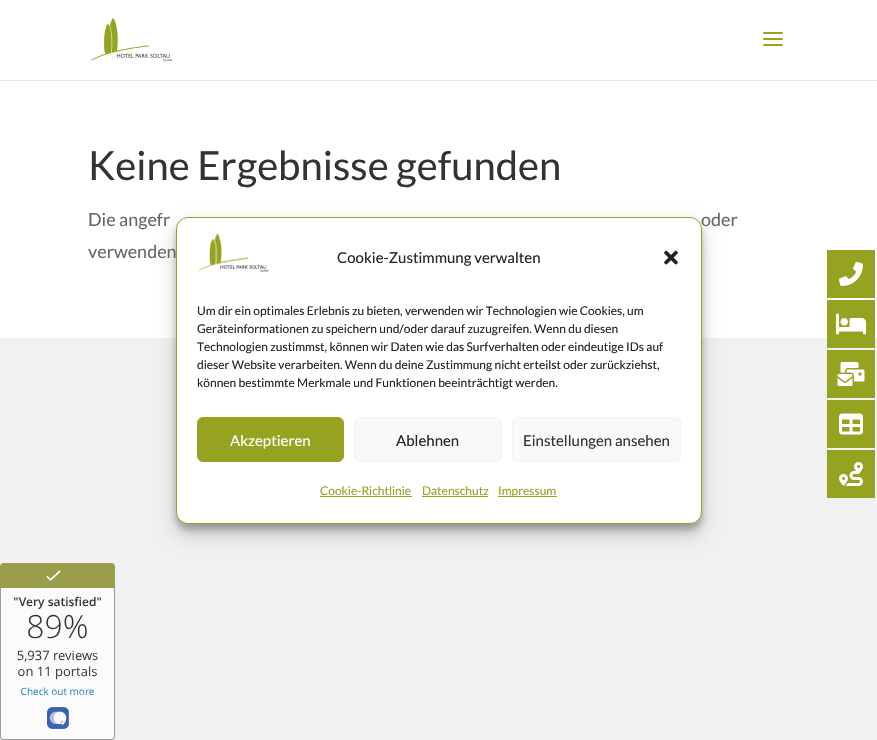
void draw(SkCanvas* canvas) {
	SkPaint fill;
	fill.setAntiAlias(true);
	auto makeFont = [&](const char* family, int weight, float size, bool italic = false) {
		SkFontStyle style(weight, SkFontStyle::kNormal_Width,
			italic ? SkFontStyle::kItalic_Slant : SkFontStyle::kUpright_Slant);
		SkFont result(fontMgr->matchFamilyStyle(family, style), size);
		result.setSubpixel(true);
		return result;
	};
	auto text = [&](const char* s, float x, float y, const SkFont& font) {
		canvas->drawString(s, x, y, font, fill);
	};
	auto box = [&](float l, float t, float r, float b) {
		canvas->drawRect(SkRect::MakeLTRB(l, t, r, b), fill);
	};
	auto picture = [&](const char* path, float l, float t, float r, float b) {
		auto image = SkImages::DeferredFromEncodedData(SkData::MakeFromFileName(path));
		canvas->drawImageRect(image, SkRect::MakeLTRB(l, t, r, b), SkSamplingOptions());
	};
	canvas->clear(0xFFF1F1F1);
	fill.setColor(0xFFE6E6E6);
	box(0, 80, 877, 81);
	fill.setColor(0xFFFFFFFF);
	box(0, 0, 877, 80);
	picture("image0.png", 91, 18, 172, 62);
	picture("image1.png", 763, 32, 783, 46);
	box(0, 81, 877, 338);
	fill.setColor(0x3B000000);
	fill.setMaskFilter(SkMaskFilter::MakeBlur(kNormal_SkBlurStyle, 3));
	canvas->drawRoundRect(SkRect::MakeLTRB(176, 223, 702, 530), 12, 12, fill);
	fill.setMaskFilter(nullptr);
	fill.setColor(0x30000000);
	fill.setMaskFilter(SkMaskFilter::MakeBlur(kNormal_SkBlurStyle, 10));
	canvas->drawRoundRect(SkRect::MakeLTRB(176, 227, 702, 534), 12, 12, fill);
	fill.setMaskFilter(nullptr);
	fill.setColor(0xFF95A321);
	box(827, 250, 875, 298);
	picture("image4.png", 839, 262, 863, 286);
	box(827, 300, 875, 348);
	picture("image5.png", 836, 313, 866, 335);
	box(827, 350, 875, 398);
	picture("image6.png", 837, 362, 865, 386);
	box(827, 400, 875, 448);
	picture("image7.png", 839, 413, 863, 435);
	box(827, 450, 875, 498);
	picture("image8.png", 839, 462, 863, 486);
	picture("image9.png", 0, 563, 115, 740);
	auto font1 = makeFont("Lato", 400, 40);
	fill.setColor(0xFF333333);
	text("Keine Ergebnisse gefunden", 88, 180, font1);
	auto font2 = makeFont("Lato", 400, 18);
	fill.setColor(0xFF666666);
	text("Die angefr", 88, 226, font2);
	text("oder", 701, 226, font2);
	text("verwenden", 88, 258, font2);
	fill.setColor(0xFFFFFFFF);
	canvas->drawRoundRect(SkRect::MakeLTRB(176.5f, 217.5f, 701.5f, 523.5f), 11.5f, 11.5f, fill);
	fill.setStyle(SkPaint::kStroke_Style);
	fill.setStrokeWidth(1);
	fill.setColor(0xFF95A321);
	canvas->drawRoundRect(SkRect::MakeLTRB(176.5f, 217.5f, 701.5f, 523.5f), 11.5f, 11.5f, fill);
	picture("image2.png", 198, 233, 269, 272);
	auto font3 = makeFont("Lato", 400, 15);
	fill.setStyle(SkPaint::kFill_Style);
	fill.setColor(0xFF222222);
	text("Cookie-Zustimmung verwalten", 337, 263, font3);
	picture("image3.png", 664, 250, 678, 265);
	auto font4 = makeFont("Lato", 400, 12);
	text("Um dir ein optimales Erlebnis zu bieten, verwenden wir Technologien wie Cookies, um", 197, 315, font4);
	text("Geräteinformationen zu speichern und/oder darauf zuzugreifen. Wenn du diesen", 197, 333, font4);
	text("Technologien zustimmst, können wir Daten wie das Surfverhalten oder eindeutige IDs auf", 197, 351, font4);
	text("dieser Website verarbeiten. Wenn du deine Zustimmung nicht erteilst oder zurückziehst,", 197, 369, font4);
	text("können bestimmte Merkmale und Funktionen beeinträchtigt werden.", 197, 387, font4);
	fill.setColor(0xFF95A321);
	canvas->drawRoundRect(SkRect::MakeLTRB(197.5f, 417.5f, 343.5f, 461.5f), 5.5f, 5.5f, fill);
	fill.setStyle(SkPaint::kStroke_Style);
	canvas->drawRoundRect(SkRect::MakeLTRB(197.5f, 417.5f, 343.5f, 461.5f), 5.5f, 5.5f, fill);
	fill.setStyle(SkPaint::kFill_Style);
	fill.setColor(0xFFFFFFFF);
	text("Akzeptieren", 230, 446, font3);
	fill.setColor(0xFFF9F9F9);
	canvas->drawRoundRect(SkRect::MakeLTRB(354.5f, 417.5f, 501.5f, 461.5f), 5.5f, 5.5f, fill);
	fill.setStyle(SkPaint::kStroke_Style);
	fill.setColor(0xFFF2F2F2);
	canvas->drawRoundRect(SkRect::MakeLTRB(354.5f, 417.5f, 501.5f, 461.5f), 5.5f, 5.5f, fill);
	fill.setStyle(SkPaint::kFill_Style);
	fill.setColor(0xFF222222);
	text("Ablehnen", 396, 446, font3);
	fill.setColor(0xFFF9F9F9);
	canvas->drawRoundRect(SkRect::MakeLTRB(512.5f, 417.5f, 680.5f, 461.5f), 5.5f, 5.5f, fill);
	fill.setStyle(SkPaint::kStroke_Style);
	fill.setColor(0xFFF2F2F2);
	canvas->drawRoundRect(SkRect::MakeLTRB(512.5f, 417.5f, 680.5f, 461.5f), 5.5f, 5.5f, fill);
	fill.setStyle(SkPaint::kFill_Style);
	fill.setColor(0xFF333333);
	text("Einstellungen ansehen", 523, 446, font3);
	fill.setColor(0xFF95A321);
	text("Cookie-Richtlinie", 320, 495, font4);
	box(320, 496, 412, 497);
	text("Datenschutz", 422, 495, font4);
	box(422, 496, 488, 497);
	box(498, 496, 557, 497);
	text("Impressum", 498, 495, font4);
}
